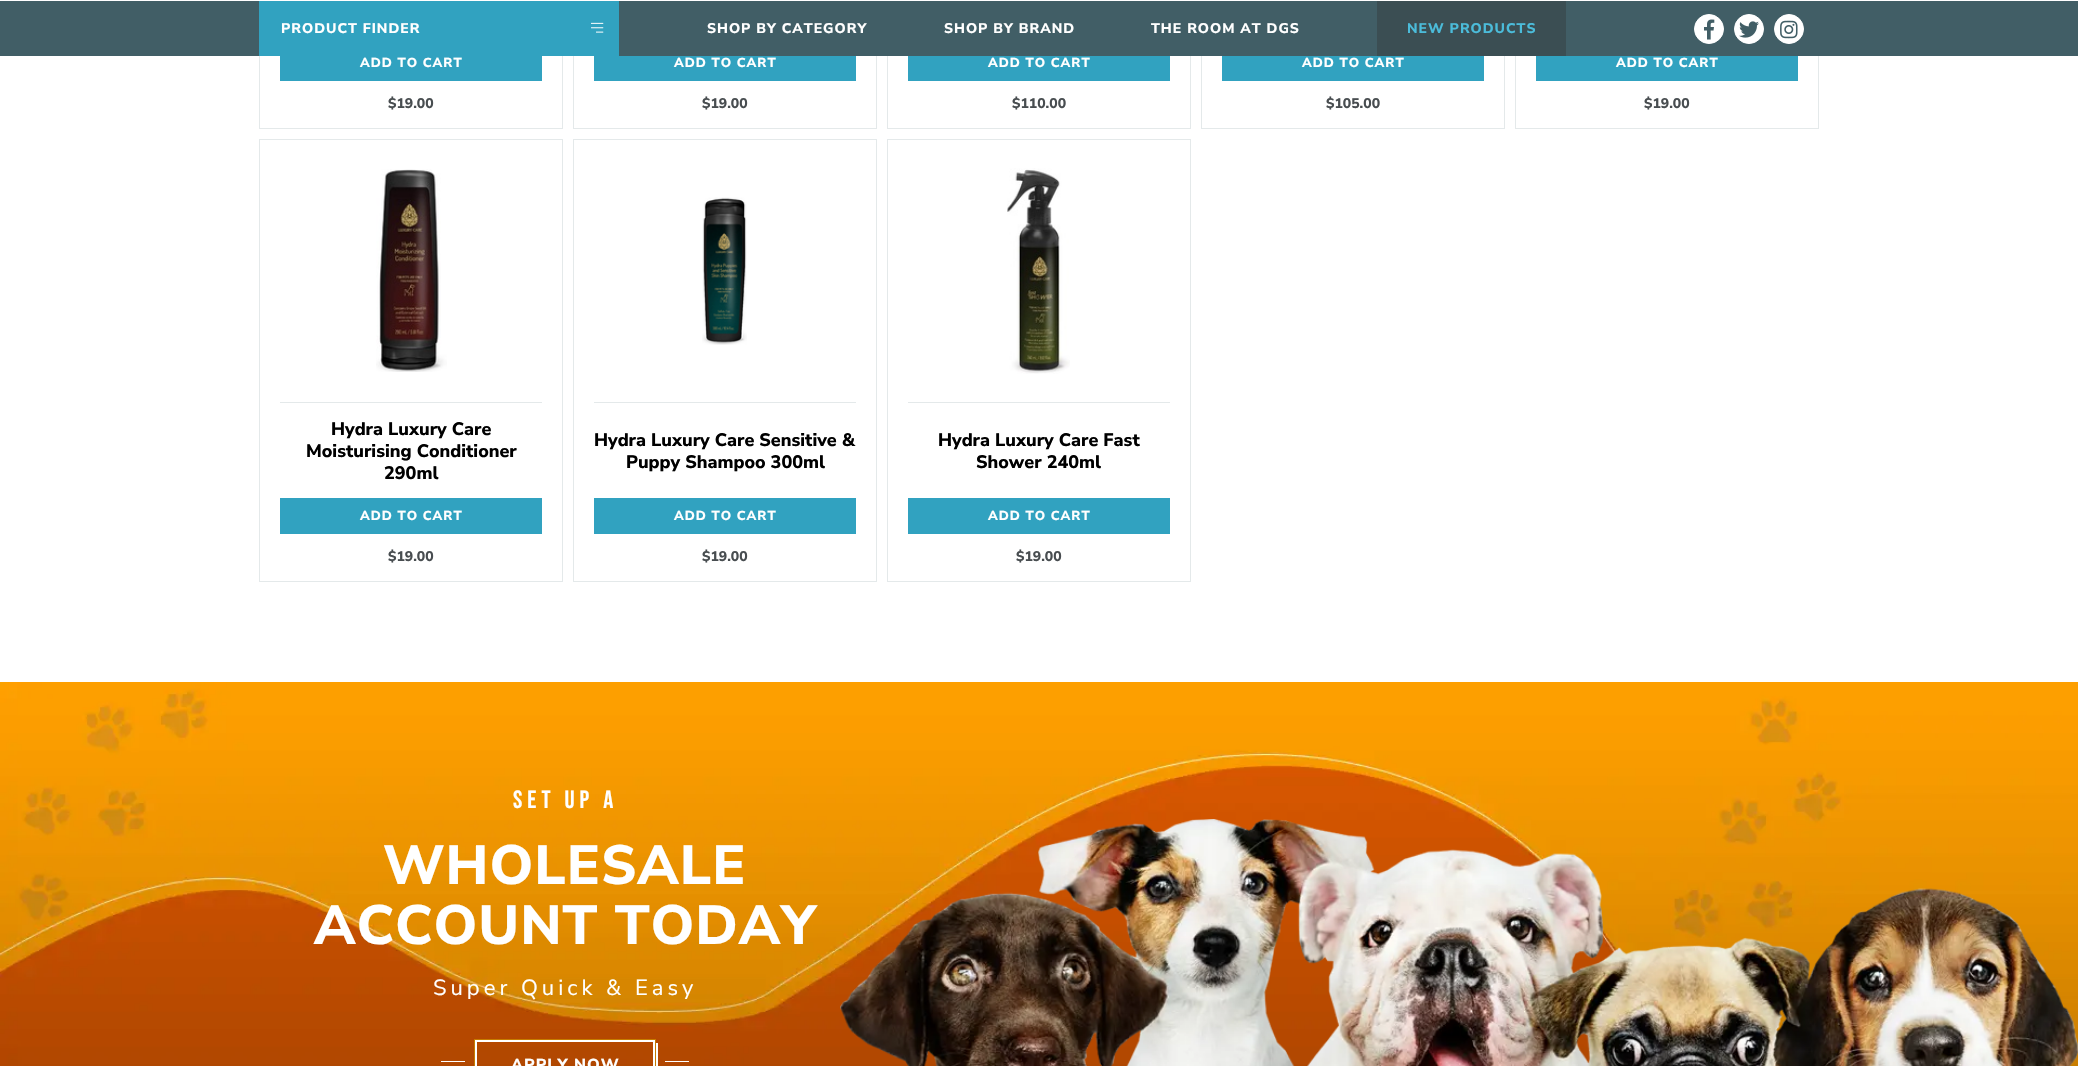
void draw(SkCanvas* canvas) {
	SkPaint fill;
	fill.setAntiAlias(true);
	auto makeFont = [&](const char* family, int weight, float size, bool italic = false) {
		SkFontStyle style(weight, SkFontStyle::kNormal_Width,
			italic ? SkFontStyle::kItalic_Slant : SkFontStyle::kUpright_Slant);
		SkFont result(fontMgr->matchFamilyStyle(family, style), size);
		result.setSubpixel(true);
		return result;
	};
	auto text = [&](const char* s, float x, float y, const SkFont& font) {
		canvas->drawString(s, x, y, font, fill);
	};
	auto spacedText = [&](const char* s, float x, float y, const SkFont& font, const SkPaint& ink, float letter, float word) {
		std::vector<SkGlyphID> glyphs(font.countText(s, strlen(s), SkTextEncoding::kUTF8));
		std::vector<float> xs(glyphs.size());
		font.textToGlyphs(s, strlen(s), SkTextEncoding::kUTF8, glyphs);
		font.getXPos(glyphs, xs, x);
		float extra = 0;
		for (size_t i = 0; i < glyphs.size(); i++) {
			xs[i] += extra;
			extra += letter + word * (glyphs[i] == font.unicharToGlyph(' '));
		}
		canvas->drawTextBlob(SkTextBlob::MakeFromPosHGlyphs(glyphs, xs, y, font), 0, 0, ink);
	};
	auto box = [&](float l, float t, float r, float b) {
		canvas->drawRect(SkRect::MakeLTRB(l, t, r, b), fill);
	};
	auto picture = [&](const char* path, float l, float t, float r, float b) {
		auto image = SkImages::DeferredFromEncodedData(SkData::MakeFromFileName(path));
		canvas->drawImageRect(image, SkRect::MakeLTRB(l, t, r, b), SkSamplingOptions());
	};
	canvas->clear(0xFFFFFFFF);
	fill.setStyle(SkPaint::kStroke_Style);
	fill.setStrokeWidth(1);
	fill.setColor(0xFFE4E9EA);
	canvas->drawRect(SkRect::MakeLTRB(259.5f, -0.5f, 562.5f, 128.5f), fill);
	canvas->drawRect(SkRect::MakeLTRB(573.5f, -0.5f, 876.5f, 128.5f), fill);
	canvas->drawRect(SkRect::MakeLTRB(887.5f, -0.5f, 1190.5f, 128.5f), fill);
	canvas->drawRect(SkRect::MakeLTRB(1201.5f, -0.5f, 1504.5f, 128.5f), fill);
	canvas->drawRect(SkRect::MakeLTRB(1515.5f, -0.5f, 1818.5f, 128.5f), fill);
	fill.setStyle(SkPaint::kFill_Style);
	fill.setColor(0xFFFFFFFF);
	box(259, 0, 1819, 1);
	fill.setColor(0xFF415E66);
	box(0, 1, 2078, 56);
	fill.setColor(0xFF31A2C0);
	box(259, 1, 619, 56);
	picture("image0.png", 591, 22, 604, 33);
	box(587, 31, 596, 33);
	fill.setColor(0xFF3B4E53);
	box(1377, 1, 1566, 56);
	fill.setColor(0xFFFFFFFF);
	canvas->drawCircle(1709, 29, 14.5f, fill);
	fill.setStyle(SkPaint::kStroke_Style);
	canvas->drawCircle(1709, 29, 14.5f, fill);
	picture("image1.png", 1704, 19, 1715, 40);
	fill.setStyle(SkPaint::kFill_Style);
	canvas->drawCircle(1749, 29, 14.5f, fill);
	fill.setStyle(SkPaint::kStroke_Style);
	canvas->drawCircle(1749, 29, 14.5f, fill);
	picture("image2.png", 1739, 21, 1759, 38);
	fill.setStyle(SkPaint::kFill_Style);
	canvas->drawCircle(1789, 29, 14.5f, fill);
	fill.setStyle(SkPaint::kStroke_Style);
	canvas->drawCircle(1789, 29, 14.5f, fill);
	picture("image3.png", 1780, 20, 1798, 39);
	fill.setStyle(SkPaint::kFill_Style);
	fill.setColor(0xFF31A2C0);
	box(280, 56, 542, 81);
	box(594, 56, 856, 81);
	box(908, 56, 1170, 81);
	box(1222, 56, 1484, 81);
	box(1536, 56, 1798, 81);
	fill.setStyle(SkPaint::kStroke_Style);
	fill.setColor(0xFFE4E9EA);
	canvas->drawRect(SkRect::MakeLTRB(259.5f, 139.5f, 562.5f, 581.5f), fill);
	fill.setStyle(SkPaint::kFill_Style);
	box(280, 402, 542, 403);
	picture("image4.png", 376, 169, 447, 372);
	fill.setColor(0xFF31A2C0);
	box(280, 498, 542, 534);
	fill.setStyle(SkPaint::kStroke_Style);
	fill.setColor(0xFFE4E9EA);
	canvas->drawRect(SkRect::MakeLTRB(573.5f, 139.5f, 876.5f, 581.5f), fill);
	fill.setStyle(SkPaint::kFill_Style);
	box(594, 402, 856, 403);
	picture("image5.png", 702, 197, 747, 345);
	fill.setColor(0xFF31A2C0);
	box(594, 498, 856, 534);
	fill.setStyle(SkPaint::kStroke_Style);
	fill.setColor(0xFFE4E9EA);
	canvas->drawRect(SkRect::MakeLTRB(887.5f, 139.5f, 1190.5f, 581.5f), fill);
	fill.setStyle(SkPaint::kFill_Style);
	box(908, 402, 1170, 403);
	picture("image6.png", 1007, 168, 1070, 374);
	fill.setColor(0xFF31A2C0);
	box(908, 498, 1170, 534);
	picture("image7.png", 0, 682, 2078, 1066);
	fill.setColor(0xFFFFFFFF);
	canvas->drawPath(SkPathBuilder().moveTo(478, 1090).lineTo(478, 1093).lineTo(658, 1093).lineTo(658, 1043).lineTo(655, 1043).lineTo(655, 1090).close().detach(), fill);
	fill.setStyle(SkPaint::kStroke_Style);
	fill.setStrokeWidth(2);
	canvas->drawRect(SkRect::MakeLTRB(476, 1041, 654, 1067), fill);
	fill.setStrokeWidth(1);
	fill.setColor(0xFFC67B00);
	canvas->drawRect(SkRect::MakeLTRB(474.5f, 1039.5f, 655.5f, 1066.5f), fill);
	fill.setStyle(SkPaint::kFill_Style);
	fill.setColor(0xFFFFFFFF);
	box(441, 1061, 465, 1062);
	box(665, 1061, 689, 1062);
	picture("image8.png", 840, 819, 2078, 1066);
	auto font1 = makeFont("Nunito Sans", 800, 14);
	spacedText("PRODUCT FINDER", 281, 33, font1, fill, 1, 0);
	spacedText("SHOP BY CATEGORY", 707, 33, font1, fill, 1, 0);
	spacedText("SHOP BY BRAND", 944, 33, font1, fill, 1, 0);
	spacedText("THE ROOM AT DGS", 1151, 33, font1, fill, 1, 0);
	fill.setColor(0xFF4BBCDA);
	spacedText("NEW PRODUCTS", 1407, 33, font1, fill, 1, 0);
	auto font2 = makeFont("Nunito Sans", 800, 13);
	fill.setColor(0xFFFFFFFF);
	spacedText("ADD TO CART", 360, 67, font2, fill, 1, 0);
	fill.setColor(0xFF484D50);
	text("$19.00", 388, 108, font1);
	fill.setColor(0xFFFFFFFF);
	spacedText("ADD TO CART", 674, 67, font2, fill, 1, 0);
	fill.setColor(0xFF484D50);
	text("$19.00", 702, 108, font1);
	fill.setColor(0xFFFFFFFF);
	spacedText("ADD TO CART", 988, 67, font2, fill, 1, 0);
	fill.setColor(0xFF484D50);
	text("$110.00", 1012, 108, font1);
	fill.setColor(0xFFFFFFFF);
	spacedText("ADD TO CART", 1302, 67, font2, fill, 1, 0);
	fill.setColor(0xFF484D50);
	text("$105.00", 1326, 108, font1);
	fill.setColor(0xFFFFFFFF);
	spacedText("ADD TO CART", 1616, 67, font2, fill, 1, 0);
	fill.setColor(0xFF484D50);
	text("$19.00", 1644, 108, font1);
	auto font3 = makeFont("Nunito Sans", 800, 18);
	fill.setColor(0xFF000000);
	text("Hydra Luxury Care", 331, 435, font3);
	text("Moisturising Conditioner", 306, 457, font3);
	text("290ml", 384, 479, font3);
	fill.setColor(0xFFFFFFFF);
	spacedText("ADD TO CART", 360, 520, font2, fill, 1, 0);
	fill.setColor(0xFF484D50);
	text("$19.00", 388, 561, font1);
	fill.setColor(0xFF000000);
	text("Hydra Luxury Care Sensitive &", 594, 446, font3);
	text("Puppy Shampoo 300ml", 626, 468, font3);
	fill.setColor(0xFFFFFFFF);
	spacedText("ADD TO CART", 674, 520, font2, fill, 1, 0);
	fill.setColor(0xFF484D50);
	text("$19.00", 702, 561, font1);
	fill.setColor(0xFF000000);
	text("Hydra Luxury Care Fast", 938, 446, font3);
	text("Shower 240ml", 976, 468, font3);
	fill.setColor(0xFFFFFFFF);
	spacedText("ADD TO CART", 988, 520, font2, fill, 1, 0);
	fill.setColor(0xFF484D50);
	text("$19.00", 1016, 561, font1);
	auto font4 = makeFont("Bebas Neue", 400, 25);
	fill.setColor(0xFFFFFFFF);
	spacedText("SET UP A", 513, 808, font4, fill, 5, 0);
	auto font5 = makeFont("Nunito Sans", 800, 55);
	spacedText("WHOLESALE", 383, 884, font5, fill, 1, 0);
	spacedText("ACCOUNT TODAY", 314, 944, font5, fill, 1, 0);
	auto font6 = makeFont("Nunito Sans", 400, 22);
	spacedText("Super Quick & Easy", 433, 995, font6, fill, 4, 0);
	auto font7 = makeFont("Nunito Sans", 800, 16);
	spacedText("APPLY NOW", 511, 1070, font7, fill, 1, 0);
}
